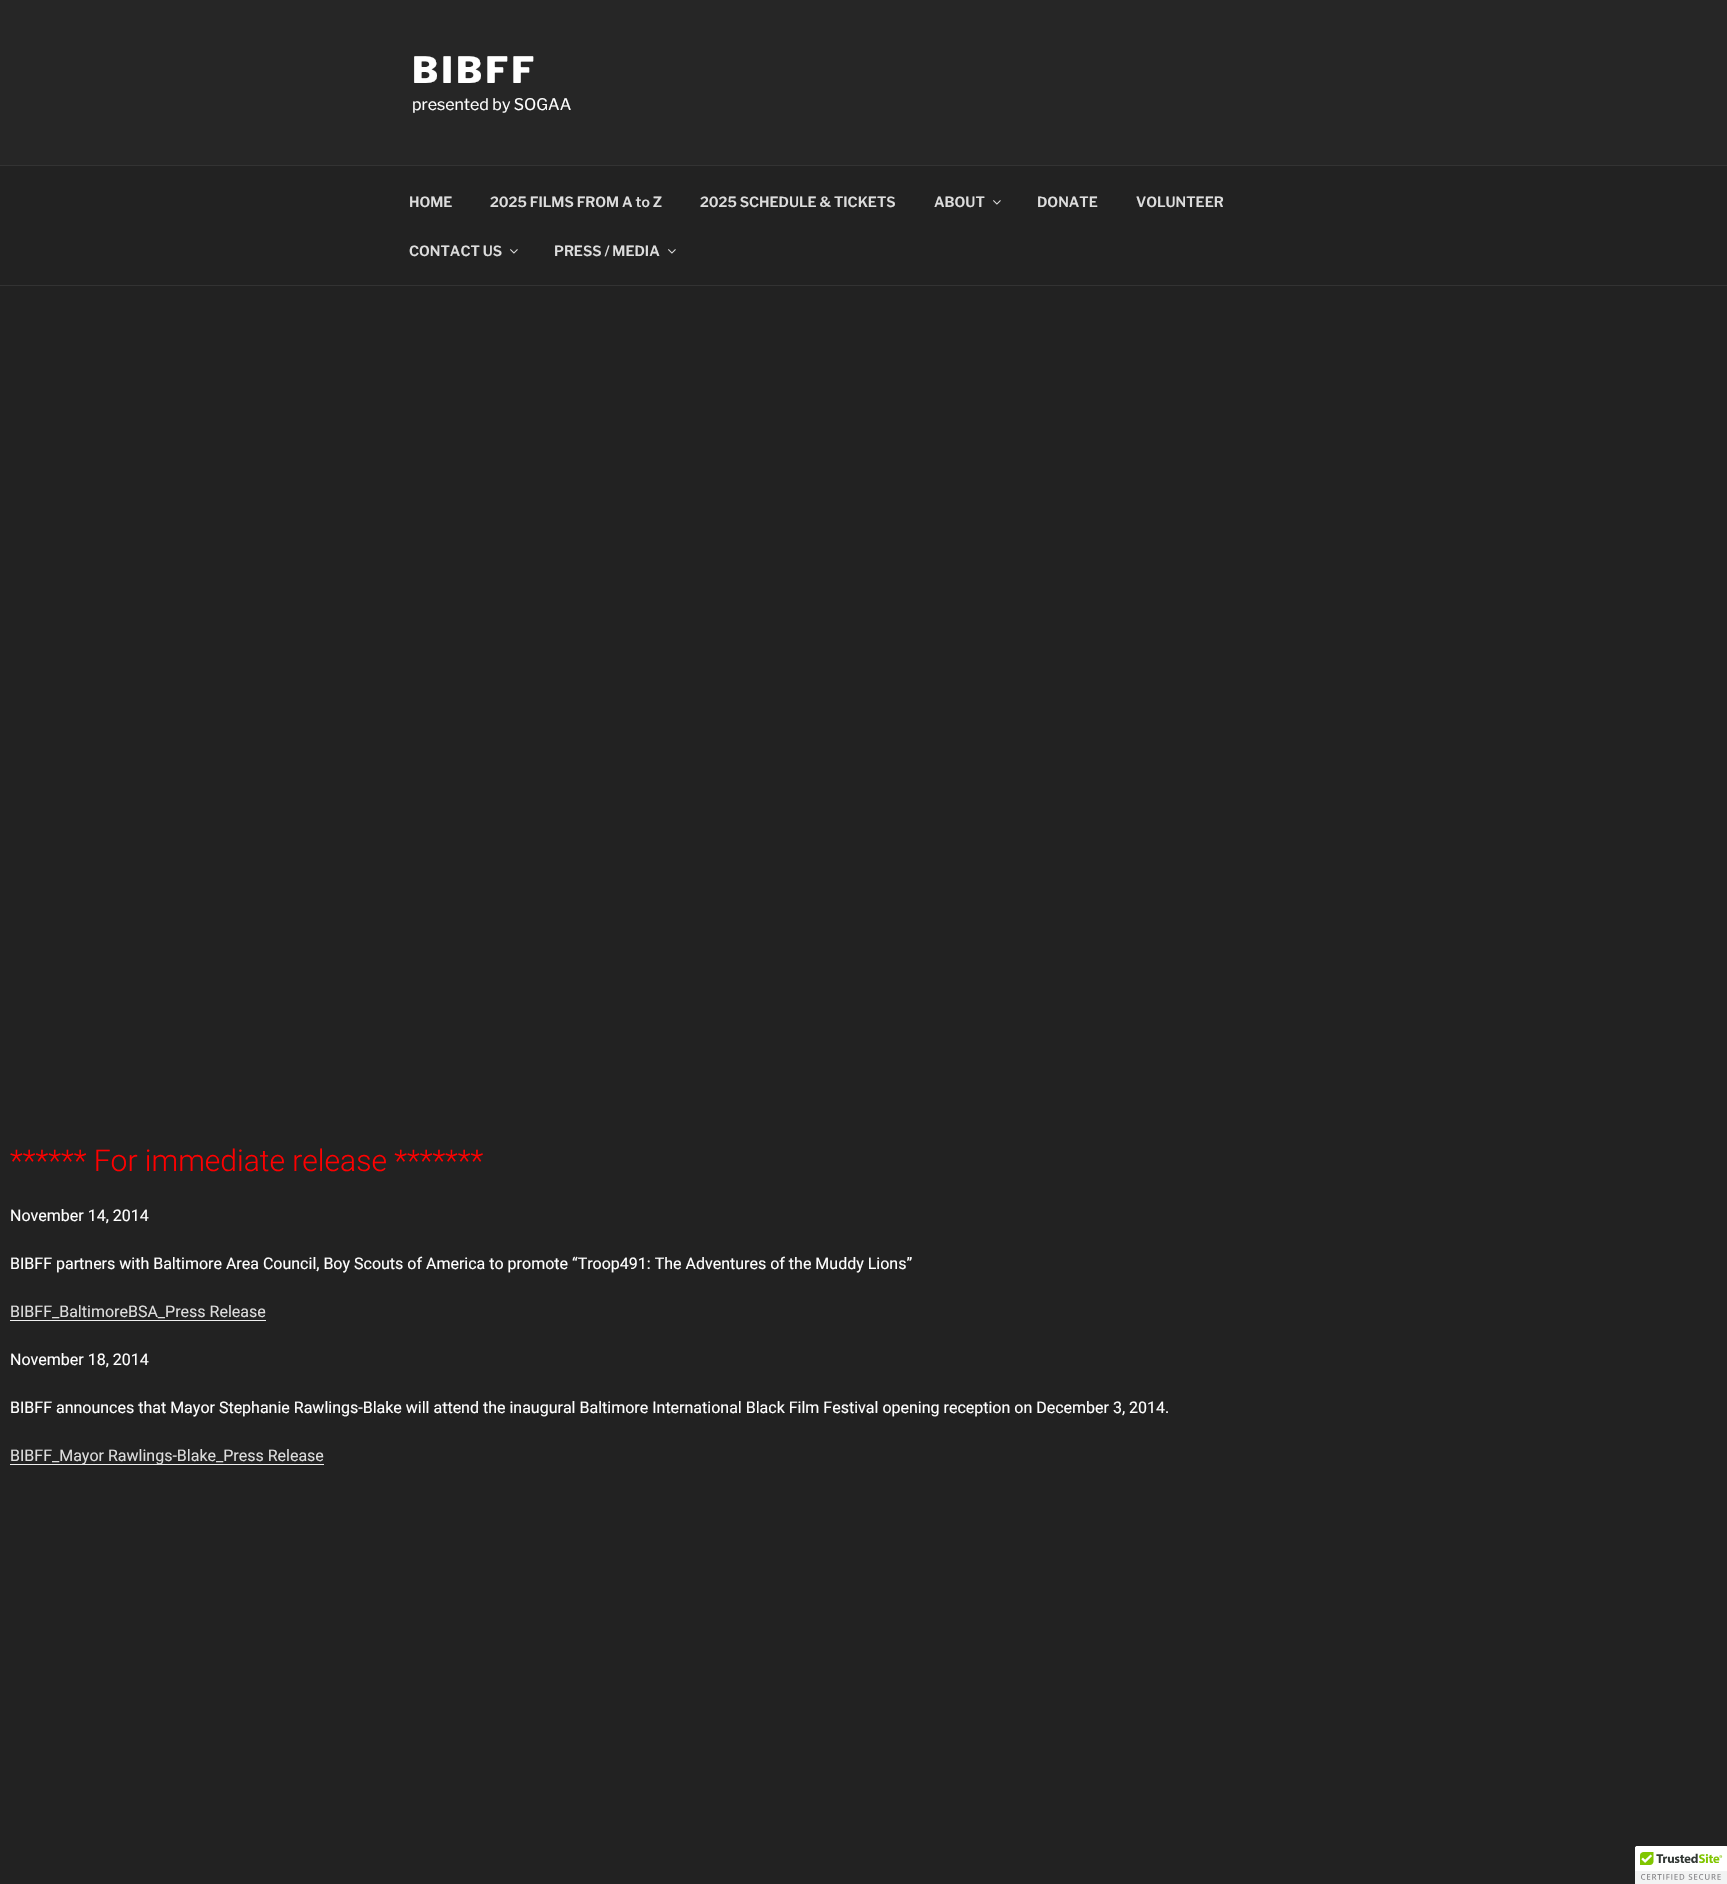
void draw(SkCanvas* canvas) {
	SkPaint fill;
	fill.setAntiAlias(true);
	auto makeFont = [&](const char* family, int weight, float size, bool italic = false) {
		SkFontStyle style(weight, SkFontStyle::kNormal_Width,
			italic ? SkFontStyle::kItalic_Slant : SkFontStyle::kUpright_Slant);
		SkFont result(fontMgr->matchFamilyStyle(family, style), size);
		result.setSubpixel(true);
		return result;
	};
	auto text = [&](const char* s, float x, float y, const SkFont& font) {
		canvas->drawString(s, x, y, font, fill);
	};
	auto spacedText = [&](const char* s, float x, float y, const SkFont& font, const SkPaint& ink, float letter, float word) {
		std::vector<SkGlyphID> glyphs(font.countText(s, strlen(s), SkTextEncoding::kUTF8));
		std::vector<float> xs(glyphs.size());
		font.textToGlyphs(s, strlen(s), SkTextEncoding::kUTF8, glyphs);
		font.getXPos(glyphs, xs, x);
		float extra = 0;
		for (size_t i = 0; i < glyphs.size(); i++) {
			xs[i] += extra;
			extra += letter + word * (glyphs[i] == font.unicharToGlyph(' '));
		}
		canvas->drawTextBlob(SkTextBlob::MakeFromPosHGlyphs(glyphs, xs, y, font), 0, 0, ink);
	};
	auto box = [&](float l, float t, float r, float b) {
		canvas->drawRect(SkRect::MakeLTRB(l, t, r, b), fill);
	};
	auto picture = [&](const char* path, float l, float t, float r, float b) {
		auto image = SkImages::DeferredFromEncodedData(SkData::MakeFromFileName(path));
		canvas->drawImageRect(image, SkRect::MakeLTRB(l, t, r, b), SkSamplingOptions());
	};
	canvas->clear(0xFF222222);
	fill.setColor(0xFF262626);
	box(0, 0, 1727, 165);
	fill.setColor(0xFF333333);
	box(0, 165, 1727, 166);
	box(0, 285, 1727, 286);
	picture("image0.png", 993, 200, 1001, 205);
	picture("image0.png", 510, 249, 518, 254);
	picture("image0.png", 668, 249, 676, 254);
	fill.setColor(0xFFF0F0F0);
	box(10, 1320, 266, 1321);
	box(10, 1464, 324, 1465);
	fill.setColor(0xFFFFFFFF);
	canvas->drawPath(SkPathBuilder().moveTo(1637, 1846).lineTo(1727, 1846).lineTo(1727, 1884).lineTo(1635, 1884).lineTo(1635, 1848).cubicTo(1635, 1847, 1636, 1846, 1637, 1846).close().detach(), fill);
	picture("image1.png", 1635, 1846, 1727, 1884);
	auto font1 = makeFont("Libre Franklin", 100, 36);
	spacedText("BIBFF", 412, 83, font1, fill, 3, 0);
	auto font2 = makeFont("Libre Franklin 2", 100, 16);
	text("presented by SOGAA", 412, 110, font2);
	auto font3 = makeFont("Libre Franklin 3", 100, 14);
	fill.setColor(0xFFDDDDDD);
	text("HOME", 409, 207, font3);
	text("2025 FILMS FROM A to Z", 490, 207, font3);
	text("2025 SCHEDULE & TICKETS", 700, 207, font3);
	text("ABOUT", 934, 207, font3);
	text("DONATE", 1037, 207, font3);
	text("VOLUNTEER", 1136, 207, font3);
	text("CONTACT US", 409, 256, font3);
	text("PRESS / MEDIA", 554, 256, font3);
	auto font4 = makeFont("Roboto", 300, 30);
	fill.setColor(0xFFFF0000);
	text("****** For immediate release *******", 10, 1171, font4);
	auto font5 = makeFont("Roboto", 400, 16);
	fill.setColor(0xFFFFFFFF);
	text("November 14, 2014", 10, 1221, font5);
	text("BIBFF partners with Baltimore Area Council, Boy Scouts of America to promote “Troop491: The Adventures of the Muddy Lions”", 10, 1269, font5);
	fill.setColor(0xFFDDDDDD);
	text("BIBFF_BaltimoreBSA_Press Release", 10, 1317, font5);
	fill.setColor(0xFFFFFFFF);
	text("November 18, 2014", 10, 1365, font5);
	text("BIBFF announces that Mayor Stephanie Rawlings-Blake will attend the inaugural Baltimore International Black Film Festival opening reception on December 3, 2014.", 10, 1413, font5);
	fill.setColor(0xFFDDDDDD);
	text("BIBFF_Mayor Rawlings-Blake_Press Release", 10, 1461, font5);
}
